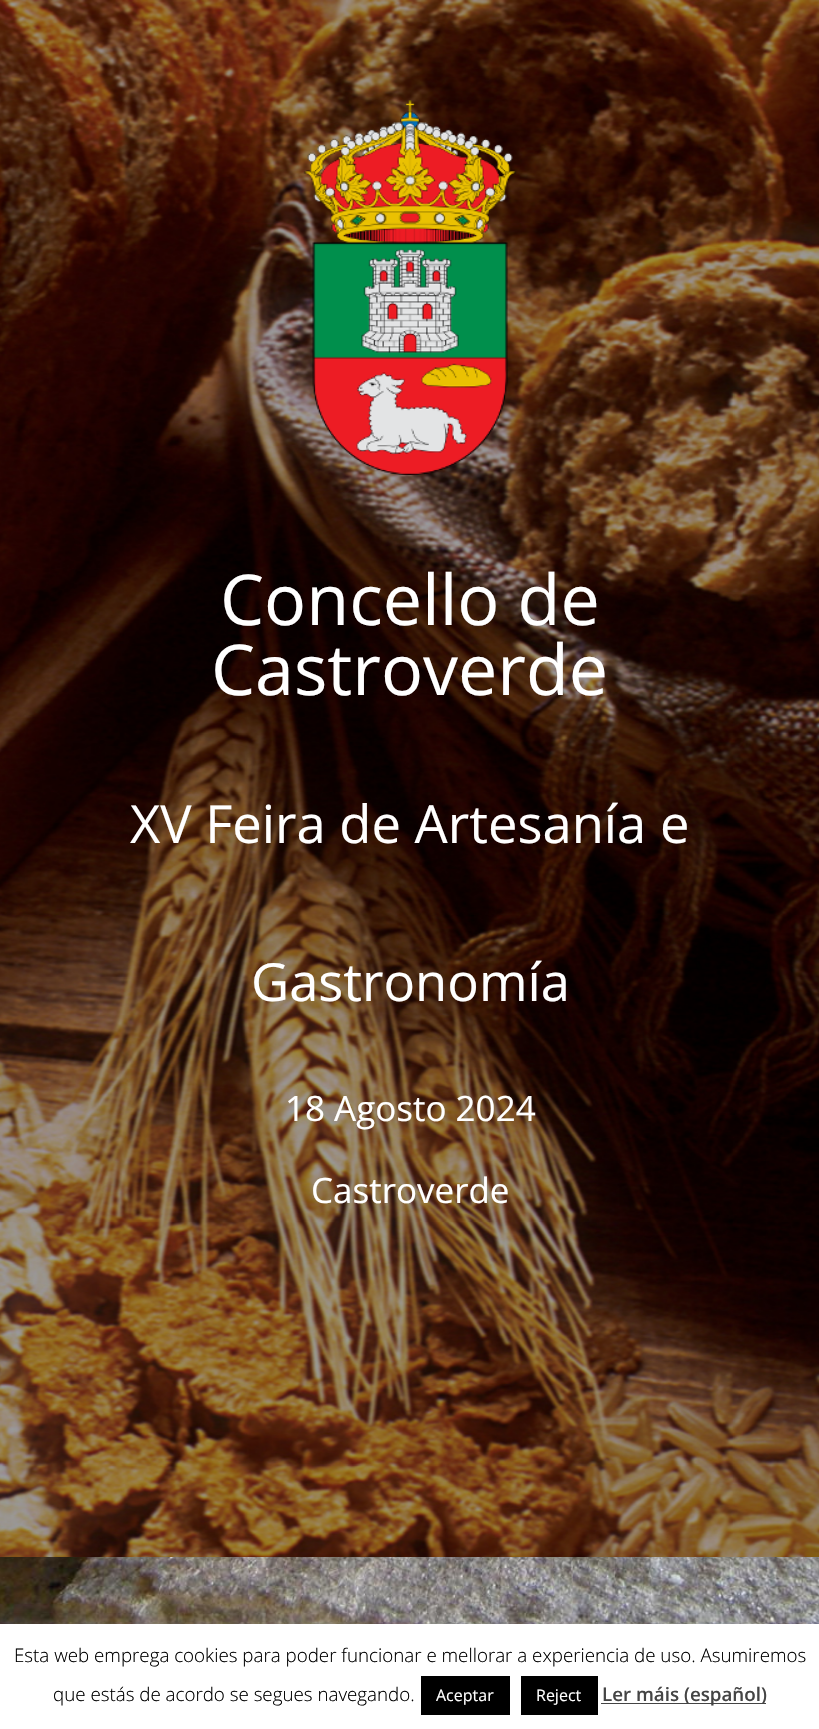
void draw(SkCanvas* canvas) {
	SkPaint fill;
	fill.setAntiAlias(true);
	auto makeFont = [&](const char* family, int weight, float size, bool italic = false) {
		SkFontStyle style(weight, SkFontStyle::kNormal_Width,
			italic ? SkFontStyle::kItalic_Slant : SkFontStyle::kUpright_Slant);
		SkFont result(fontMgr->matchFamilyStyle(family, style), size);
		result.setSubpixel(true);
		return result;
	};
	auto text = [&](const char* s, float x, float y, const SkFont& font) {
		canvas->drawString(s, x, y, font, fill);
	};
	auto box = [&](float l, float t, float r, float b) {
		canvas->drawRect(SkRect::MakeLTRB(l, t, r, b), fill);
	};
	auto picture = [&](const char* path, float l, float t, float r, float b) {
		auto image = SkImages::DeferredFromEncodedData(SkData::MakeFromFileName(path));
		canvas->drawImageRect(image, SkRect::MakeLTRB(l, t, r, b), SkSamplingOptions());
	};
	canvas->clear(0xFFFFFFFF);
	picture("image0.png", 0, 0, 819, 1557);
	picture("image1.png", 303, 100, 516, 475);
	picture("image2.png", 0, 1557, 819, 1624);
	fill.setColor(0x4DACABAB);
	fill.setMaskFilter(SkMaskFilter::MakeBlur(kNormal_SkBlurStyle, 6));
	canvas->drawRect(SkRect::MakeLTRB(0, 1623, 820, 1729), fill);
	fill.setMaskFilter(nullptr);
	fill.setColor(0xFFFFFFFF);
	box(0, 1624, 819, 1729);
	fill.setColor(0xFF000000);
	box(421, 1676, 510, 1715);
	box(521, 1676, 598, 1715);
	fill.setColor(0xFF444444);
	box(601, 1703, 766, 1704);
	auto font1 = makeFont("Open Sans", 400, 70);
	fill.setColor(0xFFFFFFFF);
	text("Concello de", 220, 625, font1);
	text("Castroverde", 211, 695, font1);
	auto font2 = makeFont("Open Sans", 400, 52.5f);
	text("XV Feira de Artesanía e", 130, 843, font2);
	text("Gastronomía", 251, 1001, font2);
	auto font3 = makeFont("Open Sans", 400, 35);
	text("18 Agosto 2024", 285, 1121, font3);
	text("Castroverde", 311, 1203, font3);
	auto font4 = makeFont("Open Sans", 300, 18.75f);
	fill.setColor(0xFF000000);
	text("Esta web emprega cookies para poder funcionar e mellorar a experiencia de uso. Asumiremos", 14, 1662, font4);
	text("que estás de acordo se segues navegando.", 53, 1701, font4);
	auto font5 = makeFont("Open Sans", 400, 16);
	fill.setColor(0xFFFFFFFF);
	text("Aceptar", 436, 1701, font5);
	text("Reject", 536, 1701, font5);
	auto font6 = makeFont("Open Sans", 600, 18.75f);
	fill.setColor(0xFF444444);
	text("Ler máis (español)", 602, 1701, font6);
}
